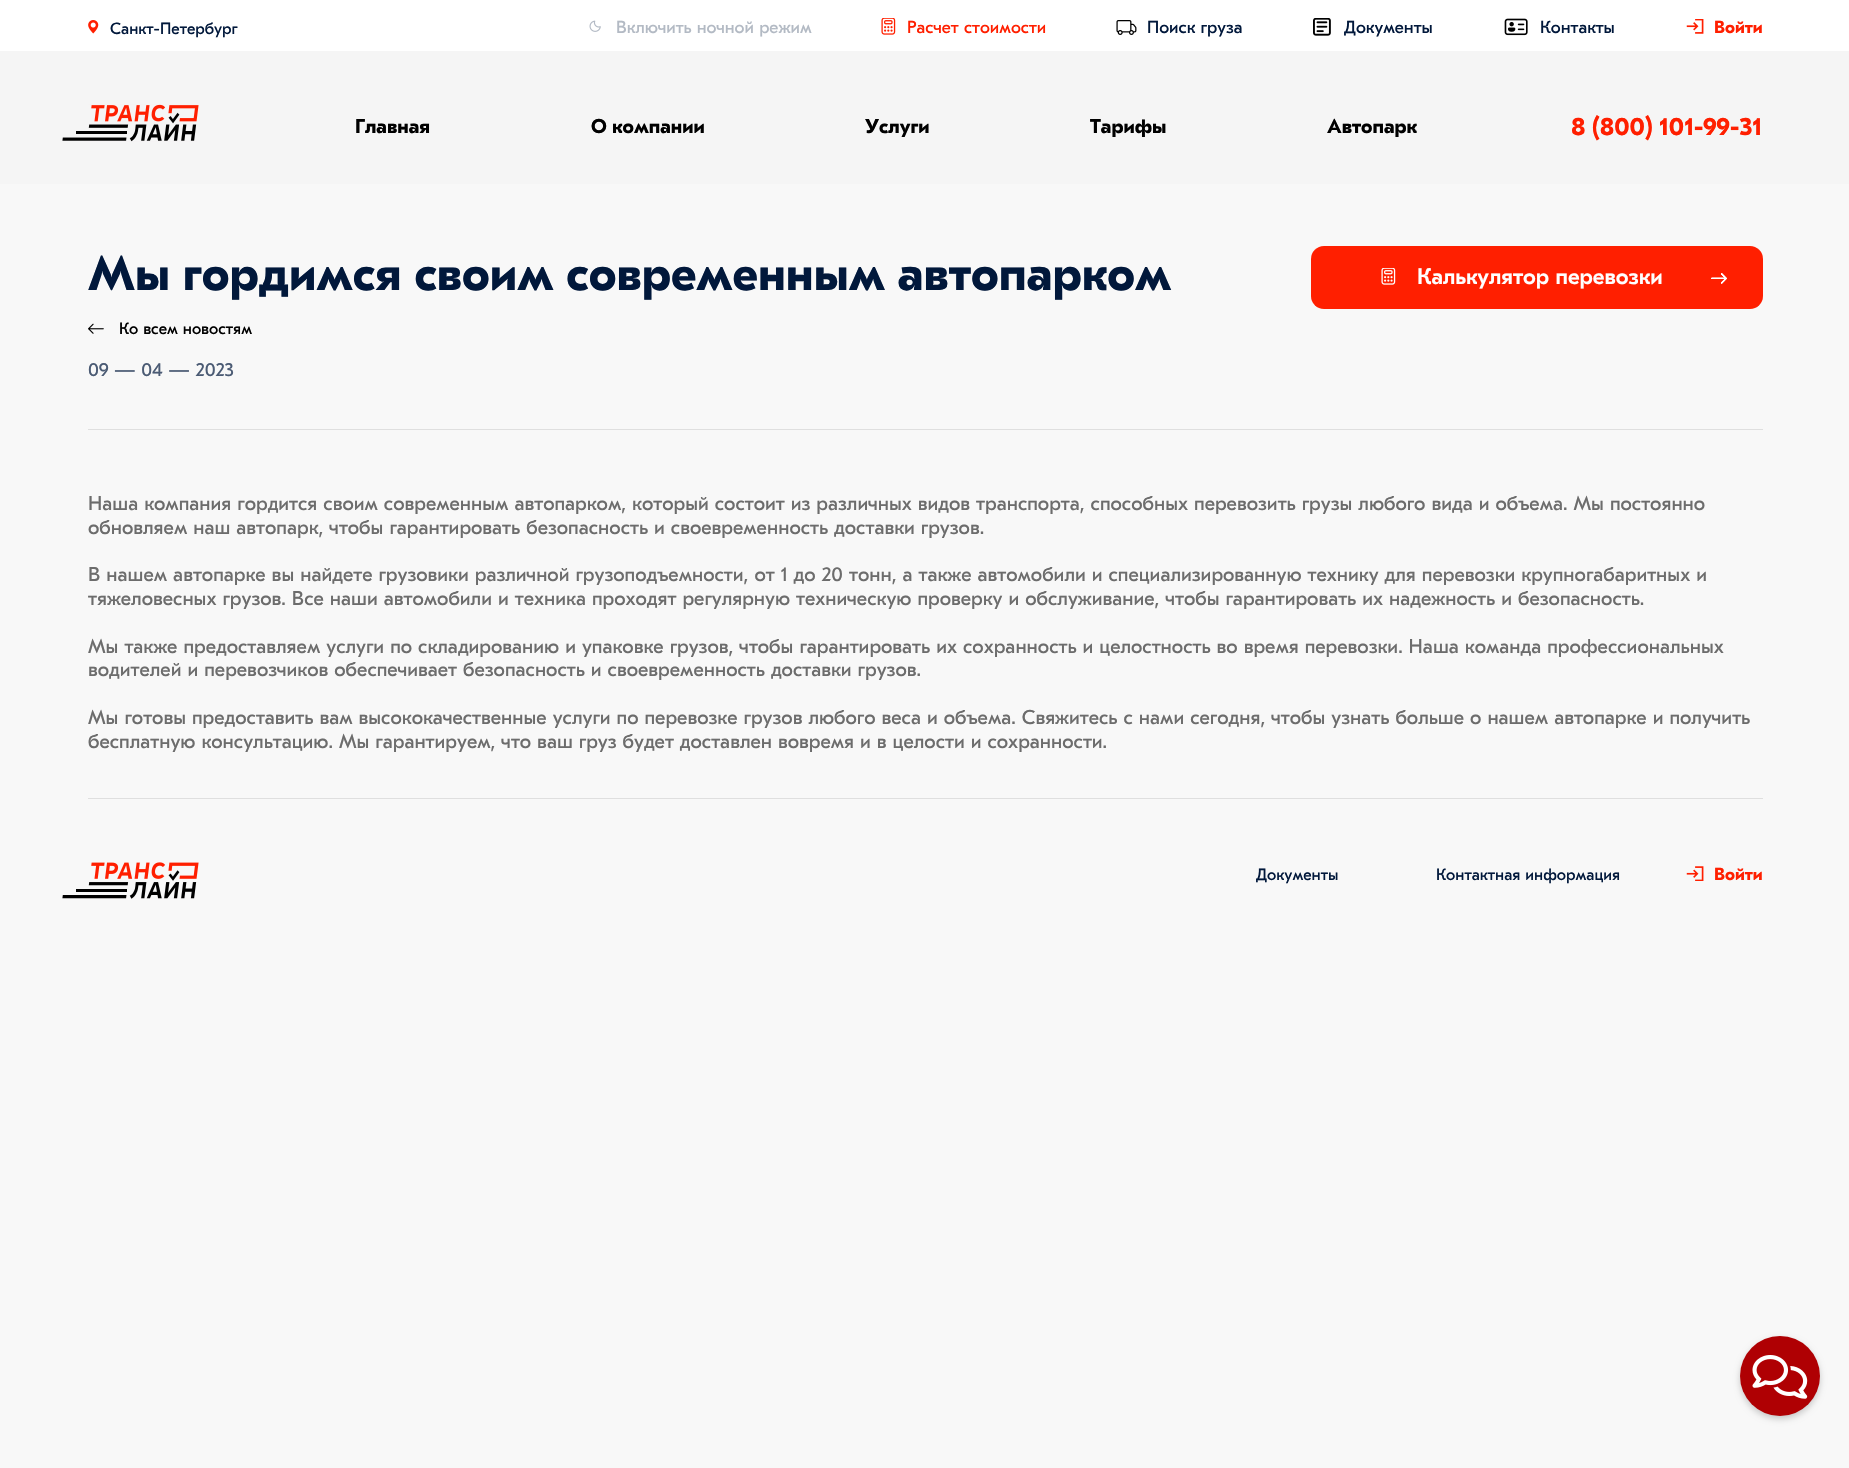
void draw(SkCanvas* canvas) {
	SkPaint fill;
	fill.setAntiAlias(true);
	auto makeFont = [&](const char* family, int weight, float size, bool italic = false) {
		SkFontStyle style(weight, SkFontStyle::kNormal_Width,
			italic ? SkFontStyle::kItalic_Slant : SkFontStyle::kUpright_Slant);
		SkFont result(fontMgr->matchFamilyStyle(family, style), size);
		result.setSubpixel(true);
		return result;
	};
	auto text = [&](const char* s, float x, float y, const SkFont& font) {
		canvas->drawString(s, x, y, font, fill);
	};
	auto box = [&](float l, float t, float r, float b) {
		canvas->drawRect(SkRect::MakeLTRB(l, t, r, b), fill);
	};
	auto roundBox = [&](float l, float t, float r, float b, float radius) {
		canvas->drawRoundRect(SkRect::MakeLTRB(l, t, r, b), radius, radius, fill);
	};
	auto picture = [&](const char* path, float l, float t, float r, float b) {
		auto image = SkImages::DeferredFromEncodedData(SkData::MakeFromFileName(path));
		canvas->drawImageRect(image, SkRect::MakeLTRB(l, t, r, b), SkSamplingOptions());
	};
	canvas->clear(0xFFF8F8F8);
	fill.setColor(0xFFFFFFFF);
	box(0, 0, 1849, 51);
	picture("image0.png", 88, 20, 99, 34);
	picture("image1.png", 589, 20, 601, 32);
	picture("image2.png", 881, 18, 896, 35);
	picture("image3.png", 1116, 20, 1137, 35);
	picture("image4.png", 1313, 18, 1331, 36);
	picture("image5.png", 1504, 18, 1528, 36);
	picture("image6.png", 1686, 19, 1704, 34);
	fill.setColor(0xFFF5F5F5);
	box(0, 51, 1849, 184);
	picture("image7.png", 62, 104, 199, 142);
	picture("image8.png", 88, 323, 104, 334);
	fill.setColor(0xFFFF1F00);
	roundBox(1311, 246, 1763, 309, 13);
	picture("image9.png", 1711, 273, 1727, 284);
	picture("image10.png", 1381, 268, 1396, 285);
	fill.setColor(0xFFDFDFDF);
	box(88, 429, 1763, 430);
	box(88, 798, 1763, 799);
	picture("image11.png", 62, 862, 199, 899);
	picture("image12.png", 1686, 866, 1704, 881);
	fill.setColor(0x33000000);
	fill.setMaskFilter(SkMaskFilter::MakeBlur(kNormal_SkBlurStyle, 3));
	canvas->drawRoundRect(SkRect::MakeLTRB(1740, 1339, 1820, 1419), 40, 40, fill);
	fill.setMaskFilter(nullptr);
	fill.setColor(0xFFAF0003);
	canvas->drawCircle(1780, 1376, 40, fill);
	picture("image13.png", 1752, 1355, 1808, 1399);
	auto font1 = makeFont("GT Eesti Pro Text", 400, 16.25f);
	fill.setColor(0xFF01183B);
	text("Санкт-Петербург", 110, 34, font1);
	auto font2 = makeFont("GT Eesti Pro Text", 400, 17.5f);
	fill.setColor(0xFFB3BAC4);
	text("Включить ночной режим", 616, 33, font2);
	fill.setColor(0xFFFF1F00);
	text("Расчет стоимости", 907, 33, font2);
	fill.setColor(0xFF01183B);
	text("Поиск груза", 1147, 33, font2);
	text("Документы", 1344, 33, font2);
	text("Контакты", 1540, 33, font2);
	auto font3 = makeFont("GT Eesti Pro Text", 700, 17.5f);
	fill.setColor(0xFFFF1F00);
	text("Войти", 1714, 33, font3);
	auto font4 = makeFont("GT Eesti Pro Text", 700, 20);
	fill.setColor(0xFF000000);
	text("Главная", 355, 133, font4);
	text("О компании", 591, 133, font4);
	text("Услуги", 865, 133, font4);
	text("Тарифы", 1090, 133, font4);
	text("Автопарк", 1327, 133, font4);
	auto font5 = makeFont("GT Eesti Pro Text", 700, 25);
	fill.setColor(0xFFFF1F00);
	text("8 (800) 101-99-31", 1571, 135, font5);
	auto font6 = makeFont("GT Eesti Pro Text", 700, 48.75f);
	fill.setColor(0xFF01183B);
	text("Мы гордимся своим современным автопарком", 88, 290, font6);
	fill.setColor(0xFF000000);
	text("Ко всем новостям", 119, 334, font1);
	auto font7 = makeFont("GT Eesti Pro Text", 400, 18.75f);
	fill.setColor(0xFF4B5B74);
	text("09 — 04 — 2023", 88, 376, font7);
	auto font8 = makeFont("GT Eesti Pro Text", 500, 22.5f);
	fill.setColor(0xFFFFFFFF);
	text("Калькулятор перевозки", 1417, 284, font8);
	auto font9 = makeFont("GT Eesti Pro Text", 400, 20);
	fill.setColor(0xFF6C6C6C);
	text("Наша компания гордится своим современным автопарком, который состоит из различных видов транспорта, способных перевозить грузы любого вида и объема. Мы постоянно", 88, 510, font9);
	text("обновляем наш автопарк, чтобы гарантировать безопасность и своевременность доставки грузов.", 88, 534, font9);
	text("В нашем автопарке вы найдете грузовики различной грузоподъемности, от 1 до 20 тонн, а также автомобили и специализированную технику для перевозки крупногабаритных и", 88, 581, font9);
	text("тяжеловесных грузов. Все наши автомобили и техника проходят регулярную техническую проверку и обслуживание, чтобы гарантировать их надежность и безопасность.", 88, 605, font9);
	text("Мы также предоставляем услуги по складированию и упаковке грузов, чтобы гарантировать их сохранность и целостность во время перевозки. Наша команда профессиональных", 88, 653, font9);
	text("водителей и перевозчиков обеспечивает безопасность и своевременность доставки грузов.", 88, 676, font9);
	text("Мы готовы предоставить вам высококачественные услуги по перевозке грузов любого веса и объема. Свяжитесь с нами сегодня, чтобы узнать больше о нашем автопарке и получить", 88, 724, font9);
	text("бесплатную консультацию. Мы гарантируем, что ваш груз будет доставлен вовремя и в целости и сохранности.", 88, 748, font9);
	fill.setColor(0xFF01183B);
	text("Документы", 1256, 880, font1);
	text("Контактная информация", 1436, 880, font1);
	fill.setColor(0xFFFF1F00);
	text("Войти", 1714, 880, font3);
}
